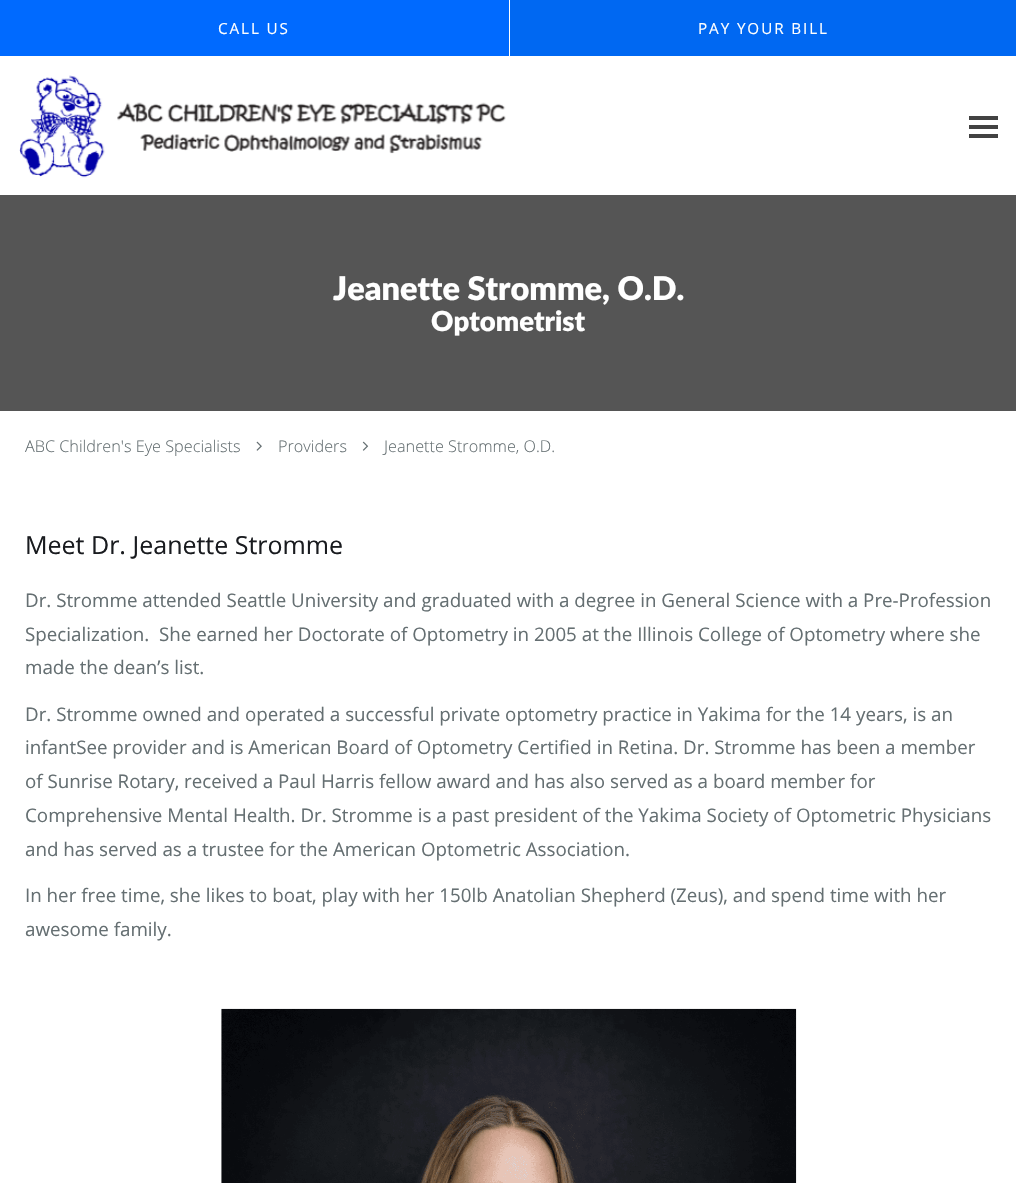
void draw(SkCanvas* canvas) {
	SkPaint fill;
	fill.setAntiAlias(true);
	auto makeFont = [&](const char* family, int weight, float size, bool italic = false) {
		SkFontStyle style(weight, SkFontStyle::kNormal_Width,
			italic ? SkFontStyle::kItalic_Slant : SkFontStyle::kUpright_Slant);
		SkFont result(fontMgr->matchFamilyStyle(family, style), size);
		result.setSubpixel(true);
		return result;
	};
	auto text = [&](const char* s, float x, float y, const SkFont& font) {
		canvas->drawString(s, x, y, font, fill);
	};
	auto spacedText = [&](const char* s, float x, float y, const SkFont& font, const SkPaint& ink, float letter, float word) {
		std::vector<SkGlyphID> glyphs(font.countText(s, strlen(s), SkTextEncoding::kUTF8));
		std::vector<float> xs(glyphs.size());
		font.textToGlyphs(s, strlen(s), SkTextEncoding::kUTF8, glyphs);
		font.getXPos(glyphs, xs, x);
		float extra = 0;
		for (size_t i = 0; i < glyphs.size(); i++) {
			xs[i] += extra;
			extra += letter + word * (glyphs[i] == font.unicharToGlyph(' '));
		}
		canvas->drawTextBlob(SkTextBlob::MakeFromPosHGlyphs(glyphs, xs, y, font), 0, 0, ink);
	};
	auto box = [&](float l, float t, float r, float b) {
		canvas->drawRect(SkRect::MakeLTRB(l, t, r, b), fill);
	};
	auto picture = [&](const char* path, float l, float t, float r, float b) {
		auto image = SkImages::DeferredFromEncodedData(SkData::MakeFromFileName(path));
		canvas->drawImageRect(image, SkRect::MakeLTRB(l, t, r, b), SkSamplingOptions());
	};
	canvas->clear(0xFFFFFFFF);
	fill.setColor(0xFF006AFF);
	box(0, 0, 509, 56);
	fill.setColor(0xFF0068F2);
	box(510, 0, 1016, 56);
	picture("image0.png", 19, 75, 506, 178);
	fill.setColor(0xFF424242);
	box(969, 116, 998, 120);
	box(969, 125, 998, 129);
	box(969, 134, 998, 138);
	fill.setColor(0xFF555555);
	box(0, 195, 1016, 411);
	picture("image1.png", 256, 441, 262, 451);
	picture("image2.png", 362, 441, 369, 451);
	picture("image3.png", 221, 1008, 797, 1183);
	auto font1 = makeFont("Open Sans", 400, 15.25f);
	fill.setColor(0xFFFFFFFF);
	spacedText("CALL US", 218, 34, font1, fill, 1.9f, 0);
	spacedText("PAY YOUR BILL", 698, 34, font1, fill, 1.9f, 0);
	auto font2 = makeFont("Lato", 900, 32.5f);
	text("Jeanette Stromme, O.D.", 333, 300, font2);
	auto font3 = makeFont("Lato", 900, 27.5f);
	text("Optometrist", 431, 331, font3);
	auto font4 = makeFont("Open Sans", 300, 16.25f);
	fill.setColor(0xFF656F72);
	text("ABC Children's Eye Specialists", 25, 452, font4);
	text("Providers", 278, 452, font4);
	text("Jeanette Stromme, O.D.", 384, 452, font4);
	auto font5 = makeFont("Open Sans", 400, 25);
	fill.setColor(0xFF191B1F);
	text("Meet Dr. Jeanette Stromme", 25, 554, font5);
	auto font6 = makeFont("Open Sans", 400, 18.75f);
	fill.setColor(0xFF656F72);
	text("Dr. Stromme attended Seattle University and graduated with a degree in General Science with a Pre-Profession", 25, 607, font6);
	text("Specialization.  She earned her Doctorate of Optometry in 2005 at the Illinois College of Optometry where she", 25, 641, font6);
	text("made the dean’s list.", 25, 674, font6);
	text("Dr. Stromme owned and operated a successful private optometry practice in Yakima for the 14 years, is an", 25, 721, font6);
	text("infantSee provider and is American Board of Optometry Certified in Retina. Dr. Stromme has been a member", 25, 754, font6);
	text("of Sunrise Rotary, received a Paul Harris fellow award and has also served as a board member for", 25, 788, font6);
	text("Comprehensive Mental Health. Dr. Stromme is a past president of the Yakima Society of Optometric Physicians", 25, 822, font6);
	text("and has served as a trustee for the American Optometric Association.", 25, 856, font6);
	text("In her free time, she likes to boat, play with her 150lb Anatolian Shepherd (Zeus), and spend time with her", 25, 902, font6);
	text("awesome family.", 25, 936, font6);
}
